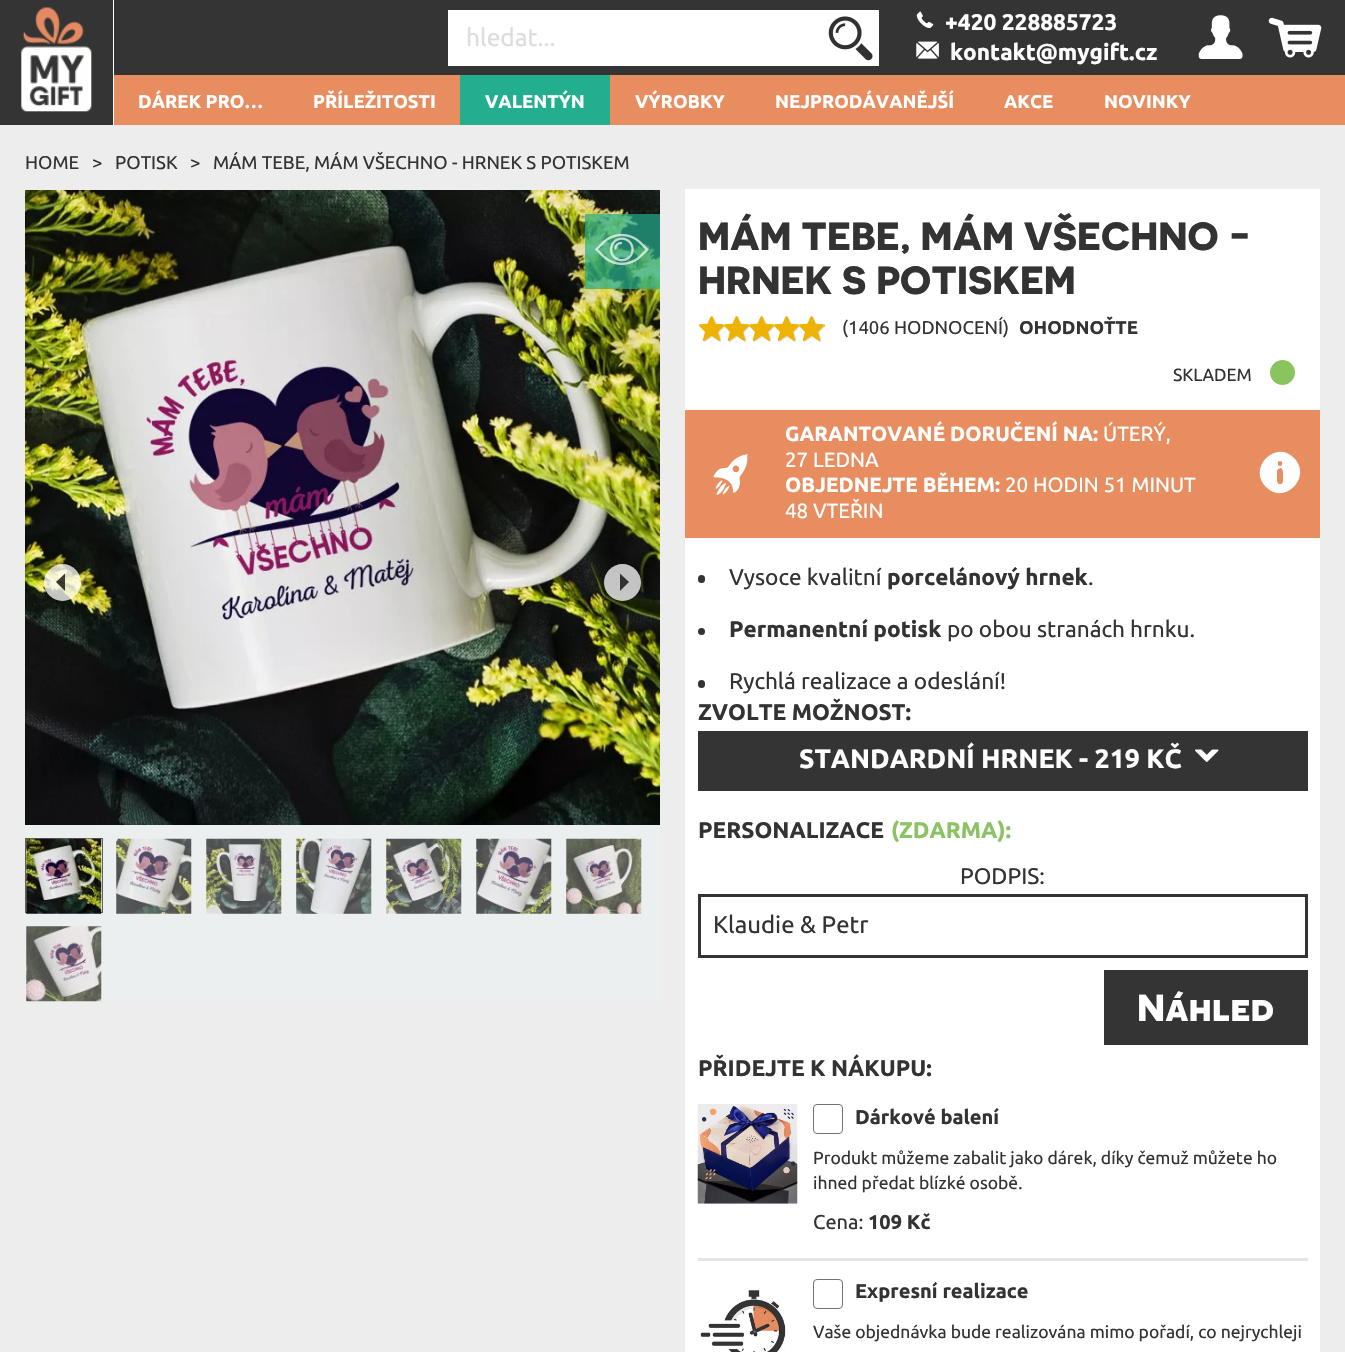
void draw(SkCanvas* canvas) {
	SkPaint fill;
	fill.setAntiAlias(true);
	auto makeFont = [&](const char* family, int weight, float size, bool italic = false) {
		SkFontStyle style(weight, SkFontStyle::kNormal_Width,
			italic ? SkFontStyle::kItalic_Slant : SkFontStyle::kUpright_Slant);
		SkFont result(fontMgr->matchFamilyStyle(family, style), size);
		result.setSubpixel(true);
		return result;
	};
	auto text = [&](const char* s, float x, float y, const SkFont& font) {
		canvas->drawString(s, x, y, font, fill);
	};
	auto box = [&](float l, float t, float r, float b) {
		canvas->drawRect(SkRect::MakeLTRB(l, t, r, b), fill);
	};
	auto roundBox = [&](float l, float t, float r, float b, float radius) {
		canvas->drawRoundRect(SkRect::MakeLTRB(l, t, r, b), radius, radius, fill);
	};
	auto picture = [&](const char* path, float l, float t, float r, float b) {
		auto image = SkImages::DeferredFromEncodedData(SkData::MakeFromFileName(path));
		canvas->drawImageRect(image, SkRect::MakeLTRB(l, t, r, b), SkSamplingOptions());
	};
	canvas->clear(0xFFEDEDED);
	fill.setColor(0xFF343434);
	box(114, 0, 1345, 75);
	fill.setColor(0xFFFFFFFF);
	box(113, 0, 114, 125);
	fill.setColor(0xFF343434);
	box(0, 0, 113, 125);
	picture("image0.png", 21, 7, 92, 112);
	fill.setColor(0xFFFFFFFF);
	box(448, 10, 879, 66);
	picture("image1.png", 828, 16, 873, 61);
	picture("image2.png", 916, 11, 934, 29);
	picture("image3.png", 916, 41, 939, 59);
	picture("image4.png", 1198, 15, 1243, 59);
	picture("image5.png", 1268, 17, 1322, 58);
	fill.setColor(0xFFE78D60);
	box(114, 75, 1345, 125);
	fill.setColor(0xFF23AE8F);
	box(460, 75, 610, 125);
	picture("image6.png", 25, 190, 660, 825);
	fill.setColor(0xBFFFFFFF);
	canvas->drawCircle(62.5f, 582.5f, 18.5f, fill);
	fill.setColor(0xBF000000);
	canvas->drawPath(SkPathBuilder().moveTo(65, 591).lineTo(56, 582).lineTo(65, 573.5f).close().detach(), fill);
	fill.setColor(0xBFFFFFFF);
	canvas->drawCircle(622.5f, 582.5f, 18.5f, fill);
	fill.setColor(0xBF000000);
	canvas->drawPath(SkPathBuilder().moveTo(620, 573.5f).lineTo(629, 582).lineTo(620, 591).close().detach(), fill);
	fill.setColor(0xB323AE8F);
	box(585, 214, 660, 289);
	picture("image7.png", 594, 233, 649, 265);
	fill.setColor(0xFFECEFF0);
	box(25, 825, 660, 1000);
	fill.setStyle(SkPaint::kStroke_Style);
	fill.setStrokeWidth(1);
	fill.setColor(0xFF616161);
	canvas->drawRect(SkRect::MakeLTRB(25.5f, 838.5f, 102.5f, 912.5f), fill);
	picture("image8.png", 26, 838, 102, 914);
	picture("image9.png", 116, 838, 192, 914);
	picture("image10.png", 206, 838, 282, 914);
	picture("image11.png", 296, 838, 372, 914);
	picture("image12.png", 386, 838, 462, 914);
	picture("image13.png", 476, 838, 552, 914);
	picture("image14.png", 566, 838, 642, 914);
	picture("image15.png", 26, 926, 102, 1002);
	fill.setStyle(SkPaint::kFill_Style);
	fill.setColor(0xFFFFFFFF);
	box(685, 189, 1320, 410);
	picture("image17.png", 700, 316, 825, 342);
	picture("image16.png", 698, 316, 825, 342);
	fill.setColor(0xFF8AC45E);
	canvas->drawCircle(1282.5f, 372.5f, 12.5f, fill);
	fill.setColor(0xFFE78D60);
	box(685, 410, 1320, 538);
	picture("image18.png", 713, 454, 748, 495);
	fill.setColor(0xFFFFFFFF);
	canvas->drawPath(SkPathBuilder().moveTo(1294, 458).cubicTo(1276, 439, 1247, 468, 1266, 487).cubicTo(1284, 506, 1313, 477, 1294, 458).close().moveTo(1283, 481).cubicTo(1283, 485, 1277, 486, 1277, 480).lineTo(1277, 471).lineTo(1278, 469).lineTo(1281, 468).cubicTo(1283, 469, 1283, 472, 1283, 474).close().moveTo(1280, 466).cubicTo(1277, 466, 1277, 461, 1280, 461).cubicTo(1283, 461, 1283, 466, 1280, 466).close().detach(), fill);
	box(685, 538, 1320, 1352);
	fill.setColor(0xFF333333);
	roundBox(698, 575, 705, 583, 3.5f);
	canvas->drawCircle(701.5f, 631.5f, 3.5f, fill);
	roundBox(698, 680, 705, 688, 3.5f);
	fill.setColor(0xFF343434);
	box(698, 731, 1308, 791);
	picture("image19.png", 1195, 749, 1219, 762);
	fill.setStyle(SkPaint::kStroke_Style);
	fill.setStrokeWidth(3);
	canvas->drawRect(SkRect::MakeLTRB(699.5f, 895.5f, 1306.5f, 956.5f), fill);
	fill.setStyle(SkPaint::kFill_Style);
	box(1104, 970, 1308, 1045);
	fill.setColor(0xFFE5E5E5);
	box(698, 1258, 1308, 1261);
	picture("image20.png", 697, 1104, 798, 1204);
	fill.setStyle(SkPaint::kStroke_Style);
	fill.setStrokeWidth(1);
	fill.setColor(0xFF727272);
	canvas->drawRoundRect(SkRect::MakeLTRB(813.5f, 1104.5f, 842.5f, 1133.5f), 3.5f, 3.5f, fill);
	picture("image21.png", 700, 1290, 786, 1352);
	canvas->drawRoundRect(SkRect::MakeLTRB(813.5f, 1279.5f, 842.5f, 1308.5f), 3.5f, 3.5f, fill);
	auto font1 = makeFont("Ubuntu", 400, 24.5f);
	fill.setStyle(SkPaint::kFill_Style);
	fill.setColor(0xFFDDDDDD);
	text("hledat...", 466, 46, font1);
	auto font2 = makeFont("Ubuntu", 700, 22.6f);
	fill.setColor(0xFFFFFFFF);
	text("+420 228885723", 945, 30, font2);
	text("kontakt@mygift.cz", 950, 60, font2);
	auto font3 = makeFont("Ubuntu", 700, 18.5f);
	text("DÁREK PRO…", 138, 108, font3);
	text("PŘÍLEŽITOSTI", 313, 108, font3);
	text("VALENTÝN", 485, 108, font3);
	text("VÝROBKY", 635, 108, font3);
	text("NEJPRODÁVANĚJŠÍ", 775, 108, font3);
	text("AKCE", 1004, 108, font3);
	text("NOVINKY", 1104, 108, font3);
	auto font4 = makeFont("Ubuntu", 400, 18.5f);
	fill.setColor(0xFF333333);
	text("HOME", 25, 169, font4);
	text(">", 92, 169, font4);
	text("POTISK", 115, 169, font4);
	text(">", 190, 169, font4);
	text("MÁM TEBE, MÁM VŠECHNO - HRNEK S POTISKEM", 213, 169, font4);
	auto font5 = makeFont("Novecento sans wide", 700, 39.1f);
	text("MÁM TEBE, MÁM VŠECHNO -", 698, 250, font5);
	text("HRNEK S POTISKEM", 698, 294, font5);
	text("(1406 HODNOCENÍ)", 842, 334, font4);
	text("OHODNOŤTE", 1019, 334, font3);
	auto font6 = makeFont("Ubuntu", 400, 17.5f);
	text("SKLADEM", 1173, 381, font6);
	auto font7 = makeFont("Ubuntu", 700, 20.6f);
	fill.setColor(0xFFFFFFFF);
	text("GARANTOVANÉ DORUČENÍ NA:", 785, 441, font7);
	auto font8 = makeFont("Ubuntu", 400, 20.6f);
	text("ÚTERÝ,", 1103, 441, font8);
	text("27 LEDNA", 785, 467, font8);
	text("OBJEDNEJTE BĚHEM:", 785, 492, font7);
	text("20 HODIN 51 MINUT", 1005, 492, font8);
	text("48 VTEŘIN", 785, 518, font8);
	auto font9 = makeFont("Ubuntu", 400, 22.6f);
	fill.setColor(0xFF333333);
	text("Vysoce kvalitní", 729, 585, font9);
	text("porcelánový hrnek", 887, 585, font2);
	text(".", 1088, 585, font9);
	text("Permanentní potisk", 729, 637, font2);
	text("po obou stranách hrnku.", 947, 637, font9);
	text("Rychlá realizace a odeslání!", 729, 689, font9);
	text("ZVOLTE MOŽNOST:", 698, 720, font2);
	auto font10 = makeFont("Ubuntu", 700, 26.6f);
	fill.setColor(0xFFFFFFFF);
	text("STANDARDNÍ HRNEK - 219 KČ", 799, 768, font10);
	fill.setColor(0xFF333333);
	text("PERSONALIZACE", 698, 838, font2);
	fill.setColor(0xFF8BC264);
	text("(ZDARMA):", 891, 838, font2);
	fill.setColor(0xFF333333);
	text("PODPIS:", 960, 884, font9);
	auto font11 = makeFont("Ubuntu", 400, 24);
	text("Klaudie & Petr", 713, 933, font11);
	auto font12 = makeFont("Novecento sans wide", 700, 37.5f);
	fill.setColor(0xFFFFFFFF);
	text("Náhled", 1137, 1021, font12);
	fill.setColor(0xFF333333);
	text("PŘIDEJTE K NÁKUPU:", 698, 1076, font2);
	auto font13 = makeFont("Ubuntu", 700, 20);
	text("Dárkové balení", 855, 1124, font13);
	text("Produkt můžeme zabalit jako dárek, díky čemuž můžete ho", 813, 1164, font6);
	text("ihned předat blízké osobě.", 813, 1189, font6);
	auto font14 = makeFont("Ubuntu", 400, 20);
	text("Cena:", 813, 1229, font14);
	text("109 Kč", 868, 1229, font13);
	text("Expresní realizace", 855, 1298, font13);
	text("Vaše objednávka bude realizována mimo pořadí, co nejrychleji", 813, 1338, font6);
}
